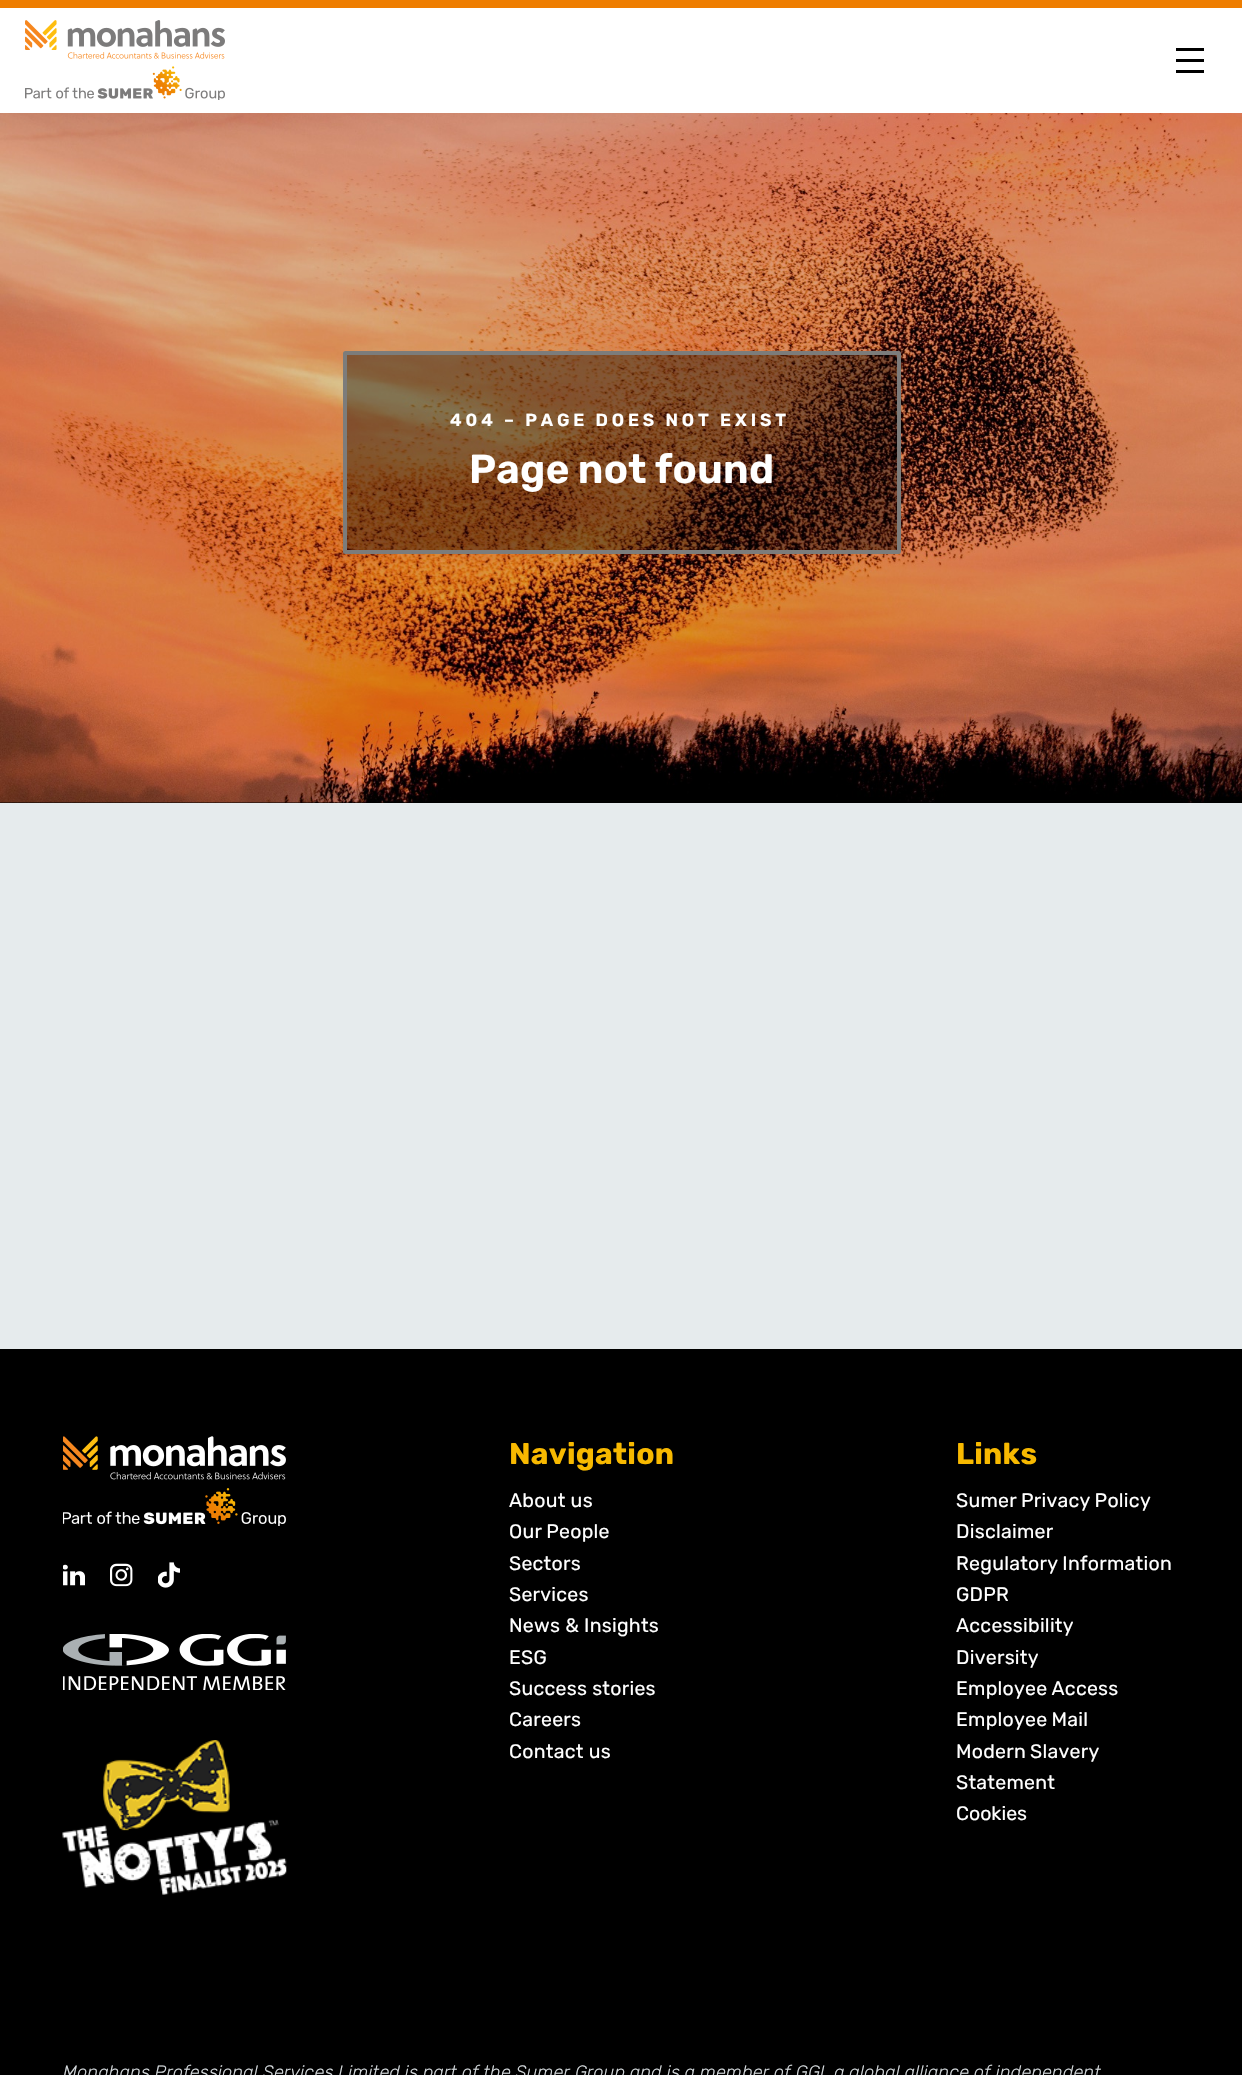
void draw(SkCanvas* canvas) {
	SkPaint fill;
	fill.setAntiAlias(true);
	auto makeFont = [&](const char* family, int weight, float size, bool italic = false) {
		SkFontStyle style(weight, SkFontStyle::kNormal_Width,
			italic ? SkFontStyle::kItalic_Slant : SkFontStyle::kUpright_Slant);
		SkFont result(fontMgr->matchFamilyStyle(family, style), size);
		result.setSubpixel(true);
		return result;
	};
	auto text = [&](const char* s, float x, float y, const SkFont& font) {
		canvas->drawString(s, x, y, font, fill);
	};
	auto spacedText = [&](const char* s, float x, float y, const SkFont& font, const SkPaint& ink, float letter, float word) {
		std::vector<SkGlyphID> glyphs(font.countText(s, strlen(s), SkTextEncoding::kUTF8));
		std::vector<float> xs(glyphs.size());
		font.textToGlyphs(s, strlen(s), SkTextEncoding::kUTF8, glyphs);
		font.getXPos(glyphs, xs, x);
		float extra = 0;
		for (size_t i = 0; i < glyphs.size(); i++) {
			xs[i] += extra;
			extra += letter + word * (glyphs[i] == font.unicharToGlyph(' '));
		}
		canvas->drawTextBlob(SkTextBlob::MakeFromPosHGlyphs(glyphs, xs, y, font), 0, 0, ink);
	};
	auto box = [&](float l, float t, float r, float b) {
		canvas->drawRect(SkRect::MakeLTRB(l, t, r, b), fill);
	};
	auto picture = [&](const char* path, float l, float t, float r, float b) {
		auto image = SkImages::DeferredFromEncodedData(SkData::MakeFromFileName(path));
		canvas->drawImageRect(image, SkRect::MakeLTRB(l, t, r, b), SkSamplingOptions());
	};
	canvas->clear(0xFFE6EBED);
	fill.setColor(0xFFFFFFFF);
	box(0, 8, 1242, 113);
	fill.setColor(0xFFEE7D00);
	box(0, 0, 1242, 8);
	picture("image0.png", 25, 20, 225, 100);
	fill.setColor(0xFF000000);
	box(1176, 59, 1204, 62);
	box(1176, 48, 1204, 51);
	box(1176, 70, 1204, 73);
	box(0, 802, 1242, 803);
	picture("image1.png", 0, 113, 1242, 803);
	fill.setColor(0x66000000);
	canvas->drawRoundRect(SkRect::MakeLTRB(345, 353, 899, 552), 0.5f, 0.5f, fill);
	fill.setStyle(SkPaint::kStroke_Style);
	fill.setStrokeWidth(4);
	fill.setColor(0xFF7C7C7B);
	canvas->drawRoundRect(SkRect::MakeLTRB(345, 353, 899, 552), 0.5f, 0.5f, fill);
	fill.setStyle(SkPaint::kFill_Style);
	fill.setColor(0xFF000000);
	box(0, 1349, 1242, 2075);
	picture("image2.png", 63, 1436, 286, 1526);
	picture("image3.png", 63, 1564, 85, 1586);
	picture("image4.png", 110, 1563, 133, 1587);
	picture("image5.png", 158, 1562, 180, 1588);
	picture("image6.png", 63, 1634, 286, 1690);
	picture("image7.png", 62, 1740, 287, 1895);
	auto font1 = makeFont("Rubik", 600, 17.5f);
	fill.setColor(0xFFFFFFFF);
	spacedText("404 – PAGE DOES NOT EXIST", 450, 426, font1, fill, 3.9f, -0.5f);
	auto font2 = makeFont("Rubik", 600, 40.5f);
	spacedText("Page not found", 469, 483, font2, fill, 0.27f, -1);
	auto font3 = makeFont("Rubik", 700, 30);
	fill.setColor(0xFFF8B900);
	spacedText("Navigation", 509, 1464, font3, fill, 0.27f, 0);
	auto font4 = makeFont("Rubik", 400, 19.5f);
	fill.setColor(0xFFFFFFFF);
	spacedText("About us", 509, 1507, font4, fill, 0.27f, 0);
	spacedText("Our People", 509, 1538, font4, fill, 0.27f, -1);
	spacedText("Sectors", 509, 1570, font4, fill, 0.27f, 0);
	spacedText("Services", 509, 1601, font4, fill, 0.27f, 0);
	spacedText("News & Insights", 509, 1632, font4, fill, 0.27f, 0);
	spacedText("ESG", 509, 1664, font4, fill, 0.27f, 0);
	spacedText("Success stories", 509, 1695, font4, fill, 0.27f, 0);
	spacedText("Careers", 509, 1726, font4, fill, 0.27f, 0);
	spacedText("Contact us", 509, 1758, font4, fill, 0.27f, 0);
	fill.setColor(0xFFF8B900);
	spacedText("Links", 956, 1464, font3, fill, 0.27f, 0);
	fill.setColor(0xFFFFFFFF);
	spacedText("Sumer Privacy Policy", 956, 1507, font4, fill, 0.27f, -1);
	spacedText("Disclaimer", 956, 1538, font4, fill, 0.27f, 0);
	spacedText("Regulatory Information", 956, 1570, font4, fill, 0.27f, -1);
	spacedText("GDPR", 956, 1601, font4, fill, 0.27f, 0);
	spacedText("Accessibility", 956, 1632, font4, fill, 0.27f, 0);
	spacedText("Diversity", 956, 1664, font4, fill, 0.27f, 0);
	spacedText("Employee Access", 956, 1695, font4, fill, 0.27f, -1);
	spacedText("Employee Mail", 956, 1726, font4, fill, 0.27f, -1);
	spacedText("Modern Slavery", 956, 1758, font4, fill, 0.27f, -1);
	spacedText("Statement", 956, 1789, font4, fill, 0.27f, 0);
	text("Cookies", 956, 1820, font4);
	auto font5 = makeFont("Rubik", 300, 17.92f, true);
	fill.setColor(0xFFD4D9DC);
	spacedText("Monahans Professional Services Limited is part of the Sumer Group and is a member of GGI, a global alliance of independent", 63, 2078, font5, fill, 0.27f, -0.25f);
}
